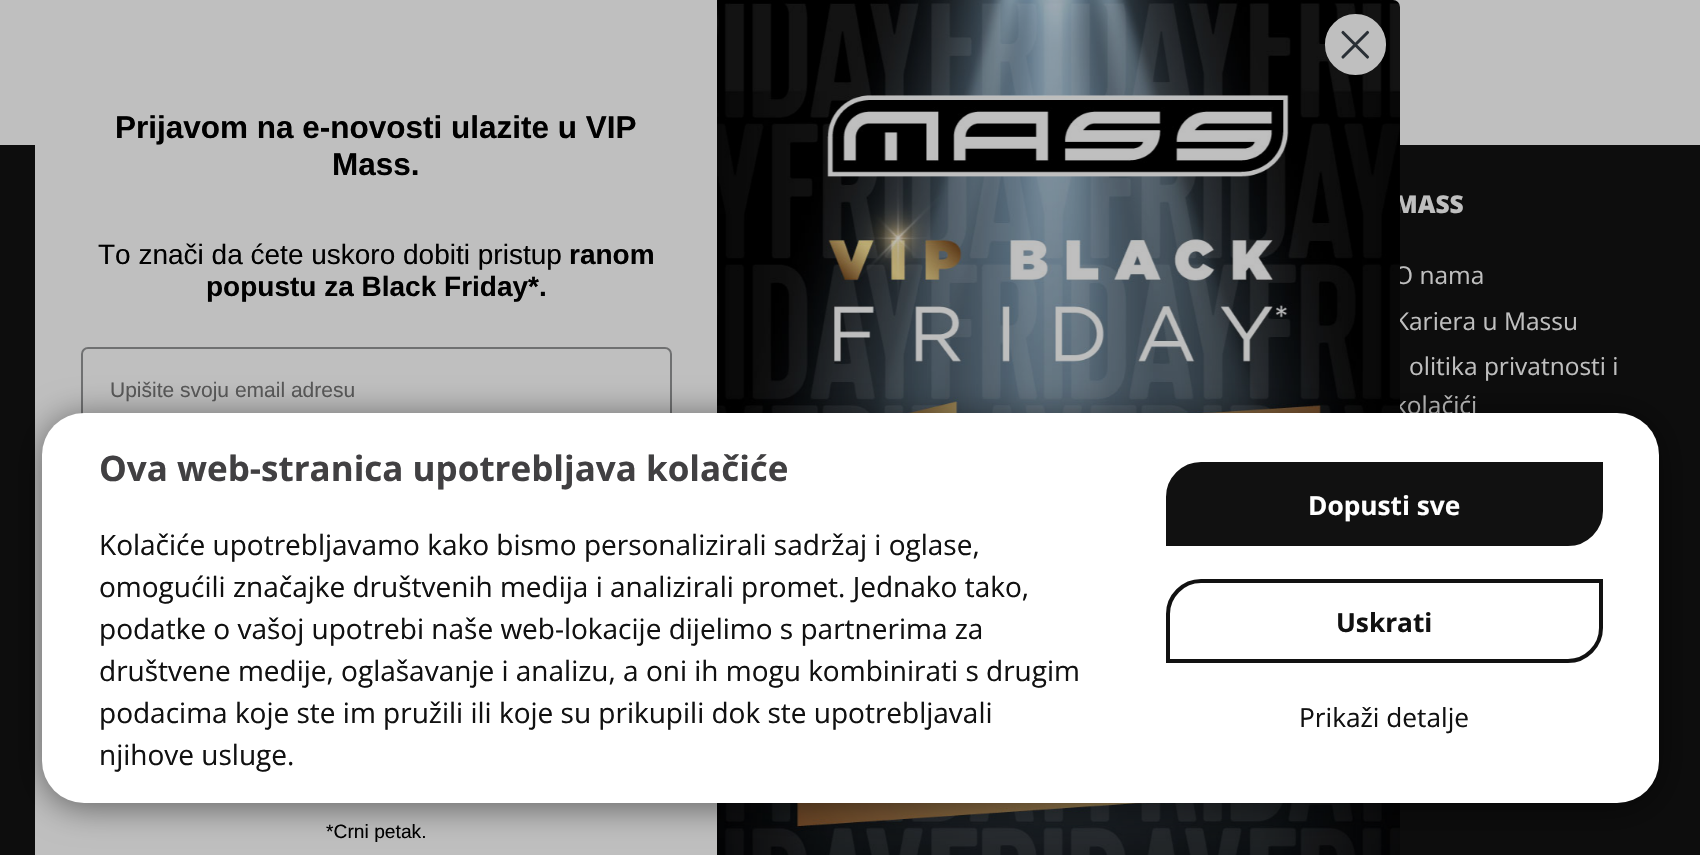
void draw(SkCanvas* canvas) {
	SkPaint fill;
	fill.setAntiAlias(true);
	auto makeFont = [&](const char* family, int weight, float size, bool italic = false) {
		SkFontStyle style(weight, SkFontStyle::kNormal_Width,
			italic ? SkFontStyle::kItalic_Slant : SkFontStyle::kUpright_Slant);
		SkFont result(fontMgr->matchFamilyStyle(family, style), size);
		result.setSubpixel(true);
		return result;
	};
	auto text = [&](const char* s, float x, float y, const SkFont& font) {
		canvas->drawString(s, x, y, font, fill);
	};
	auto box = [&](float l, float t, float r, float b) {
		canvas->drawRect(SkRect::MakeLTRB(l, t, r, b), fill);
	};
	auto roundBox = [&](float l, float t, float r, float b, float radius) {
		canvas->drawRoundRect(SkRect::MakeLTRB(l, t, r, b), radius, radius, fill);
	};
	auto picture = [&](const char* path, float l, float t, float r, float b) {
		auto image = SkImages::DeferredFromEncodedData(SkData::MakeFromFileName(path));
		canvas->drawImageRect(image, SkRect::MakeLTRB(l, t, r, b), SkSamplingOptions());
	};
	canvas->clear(0xFFBFBFBF);
	fill.setColor(0xFF0D0D0D);
	box(0, 145, 1700, 855);
	fill.setColor(0xFFBFBFBF);
	roundBox(35, 0, 1400, 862, 7);
	fill.setStyle(SkPaint::kStroke_Style);
	fill.setStrokeWidth(2);
	fill.setColor(0xFF6F7071);
	canvas->drawRoundRect(SkRect::MakeLTRB(82, 348, 671, 433), 6, 6, fill);
	auto font1 = makeFont("Liberation Sans", 700, 31.5f);
	fill.setStyle(SkPaint::kFill_Style);
	fill.setColor(0xFF000000);
	text("Prijavom na e-novosti ulazite u VIP", 115, 138, font1);
	text("Mass.", 332, 175, font1);
	auto font2 = makeFont("Liberation Sans", 400, 28);
	text("To znači da ćete uskoro dobiti pristup", 98, 264, font2);
	auto font3 = makeFont("Liberation Sans", 700, 28);
	text("ranom", 569, 264, font3);
	text("popustu za Black Friday*.", 206, 296, font3);
	auto font4 = makeFont("Liberation Sans", 400, 21);
	fill.setColor(0xFF595959);
	text("Upišite svoju email adresu", 110, 397, font4);
	auto font5 = makeFont("Liberation Sans", 400, 19.25f);
	fill.setColor(0xFF000000);
	text("*Crni petak.", 326, 838, font5);
	auto font6 = makeFont("Open Sans", 800, 24.5f);
	fill.setColor(0xFFBFBFBF);
	text("MASS", 1394, 213, font6);
	auto font7 = makeFont("Open Sans", 400, 24.5f);
	text("O nama", 1394, 284, font7);
	text("Kariera u Massu", 1394, 330, font7);
	text("olitika privatnosti i", 1409, 375, font7);
	text("kolačići", 1394, 414, font7);
	picture("image0.png", 717, 0, 1400, 855);
	canvas->drawCircle(1355.5f, 44.5f, 29, fill);
	fill.setStyle(SkPaint::kStroke_Style);
	fill.setStrokeWidth(3.1f);
	canvas->drawCircle(1355.5f, 44.5f, 29, fill);
	fill.setStrokeCap(SkPaint::kRound_Cap);
	fill.setStrokeJoin(SkPaint::kRound_Join);
	fill.setColor(0xFF292F35);
	canvas->drawPath(SkPathBuilder().moveTo(1343, 32.5f).lineTo(1367.5f, 57).moveTo(1343, 57).lineTo(1367.5f, 32.5f).close().detach(), fill);
	fill.setStyle(SkPaint::kFill_Style);
	fill.setColor(0x80000000);
	fill.setMaskFilter(SkMaskFilter::MakeBlur(kNormal_SkBlurStyle, 17.5f));
	canvas->drawRoundRect(SkRect::MakeLTRB(42, 417, 1659, 807), 42, 42, fill);
	fill.setMaskFilter(nullptr);
	fill.setColor(0xFFFFFFFF);
	roundBox(42, 413, 1659, 803, 42);
	auto font8 = makeFont("Open Sans", 700, 35);
	fill.setColor(0xFF414042);
	text("Ova web-stranica upotrebljava kolačiće", 99, 481, font8);
	auto font9 = makeFont("Open Sans", 400, 28);
	fill.setColor(0xFF111111);
	text("Kolačiće upotrebljavamo kako bismo personalizirali sadržaj i oglase,", 99, 555, font9);
	text("omogućili značajke društvenih medija i analizirali promet. Jednako tako,", 99, 597, font9);
	text("podatke o vašoj upotrebi naše web-lokacije dijelimo s partnerima za", 99, 639, font9);
	text("društvene medije, oglašavanje i analizu, a oni ih mogu kombinirati s drugim", 99, 681, font9);
	text("podacima koje ste im pružili ili koje su prikupili dok ste upotrebljavali", 99, 723, font9);
	text("njihove usluge.", 99, 765, font9);
	canvas->drawPath(SkPathBuilder().moveTo(1201, 464).lineTo(1601, 464).lineTo(1601, 511).cubicTo(1601, 529, 1586, 544, 1568, 544).lineTo(1168, 544).lineTo(1168, 497).cubicTo(1168, 479, 1183, 464, 1201, 464).close().detach(), fill);
	fill.setStyle(SkPaint::kStroke_Style);
	fill.setStrokeWidth(4);
	fill.setStrokeCap(SkPaint::kButt_Cap);
	fill.setStrokeJoin(SkPaint::kMiter_Join);
	canvas->drawPath(SkPathBuilder().moveTo(1201, 464).lineTo(1601, 464).lineTo(1601, 511).cubicTo(1601, 529, 1586, 544, 1568, 544).lineTo(1168, 544).lineTo(1168, 497).cubicTo(1168, 479, 1183, 464, 1201, 464).close().detach(), fill);
	auto font10 = makeFont("Open Sans", 700, 26.25f);
	fill.setStyle(SkPaint::kFill_Style);
	fill.setColor(0xFFFFFFFF);
	text("Dopusti sve", 1308, 515, font10);
	fill.setStyle(SkPaint::kStroke_Style);
	fill.setColor(0xFF111111);
	canvas->drawPath(SkPathBuilder().moveTo(1201, 581).lineTo(1601, 581).lineTo(1601, 628).cubicTo(1601, 646, 1586, 661, 1568, 661).lineTo(1168, 661).lineTo(1168, 614).cubicTo(1168, 596, 1183, 581, 1201, 581).close().detach(), fill);
	fill.setStyle(SkPaint::kFill_Style);
	text("Uskrati", 1336, 632, font10);
	auto font11 = makeFont("Open Sans", 400, 26.25f);
	text("Prikaži detalje", 1299, 727, font11);
}
